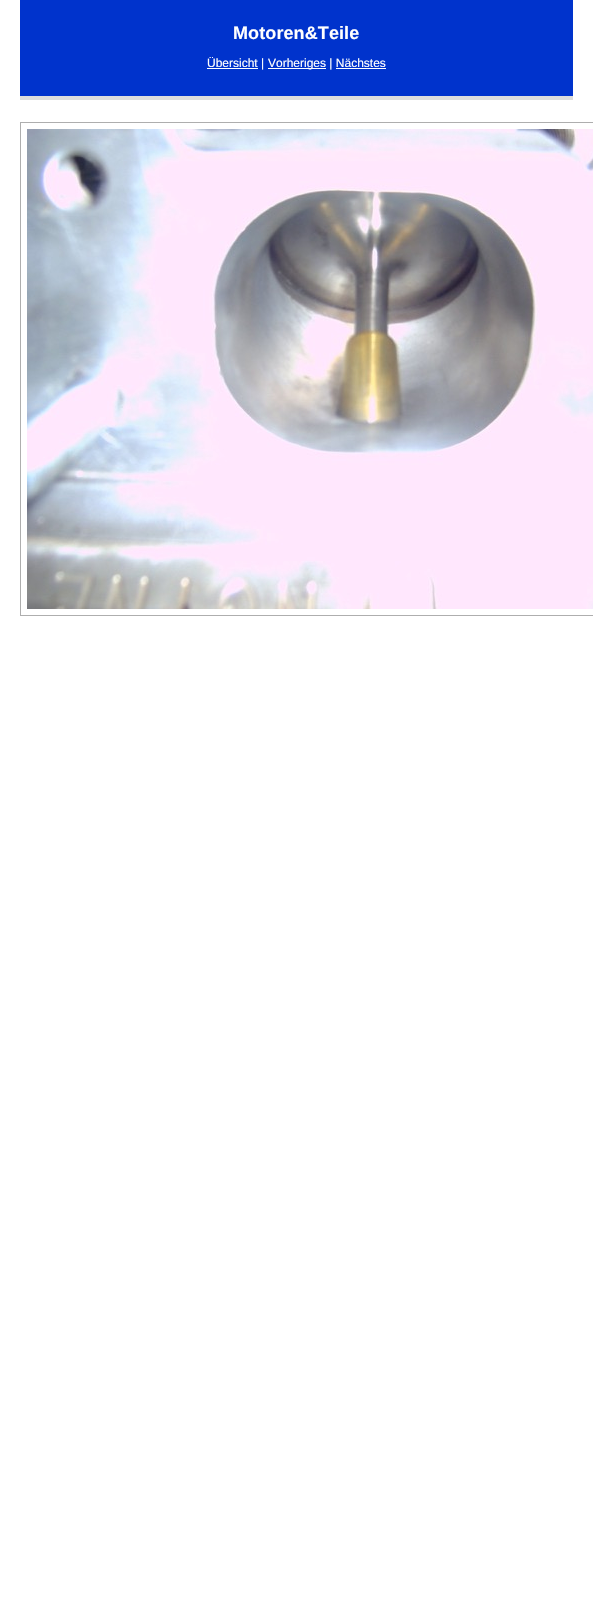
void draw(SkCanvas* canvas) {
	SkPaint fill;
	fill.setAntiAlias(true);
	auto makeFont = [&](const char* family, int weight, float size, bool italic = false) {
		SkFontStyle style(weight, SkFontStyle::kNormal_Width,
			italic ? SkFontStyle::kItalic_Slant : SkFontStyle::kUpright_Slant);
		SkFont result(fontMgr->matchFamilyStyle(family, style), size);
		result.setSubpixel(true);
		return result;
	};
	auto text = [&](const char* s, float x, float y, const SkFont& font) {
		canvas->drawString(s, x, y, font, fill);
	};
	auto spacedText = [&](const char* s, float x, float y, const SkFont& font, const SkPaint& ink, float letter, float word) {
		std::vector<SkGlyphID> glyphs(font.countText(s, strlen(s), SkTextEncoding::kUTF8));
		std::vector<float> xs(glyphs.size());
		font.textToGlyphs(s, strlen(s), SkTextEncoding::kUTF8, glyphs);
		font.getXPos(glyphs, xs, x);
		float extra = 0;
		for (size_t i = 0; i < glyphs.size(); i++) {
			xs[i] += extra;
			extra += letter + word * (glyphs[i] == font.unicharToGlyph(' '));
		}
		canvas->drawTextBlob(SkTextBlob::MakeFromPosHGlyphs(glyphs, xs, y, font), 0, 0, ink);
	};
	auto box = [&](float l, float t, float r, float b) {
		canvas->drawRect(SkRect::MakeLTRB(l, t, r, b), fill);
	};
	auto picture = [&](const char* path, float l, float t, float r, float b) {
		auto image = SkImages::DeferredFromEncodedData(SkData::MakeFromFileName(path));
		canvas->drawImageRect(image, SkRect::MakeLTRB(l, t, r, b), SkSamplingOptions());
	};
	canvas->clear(0xFFFFFFFF);
	fill.setColor(0xFF0033CC);
	box(20, 0, 573, 96);
	fill.setColor(0xFFDDDDDD);
	box(20, 96, 573, 100);
	fill.setColor(0xFFFFFFFF);
	box(207, 68, 258, 69);
	box(268, 68, 326, 69);
	box(336, 68, 386, 69);
	fill.setStyle(SkPaint::kStroke_Style);
	fill.setStrokeWidth(1);
	fill.setColor(0xFFAEAEAE);
	canvas->drawRect(SkRect::MakeLTRB(20.5f, 122.5f, 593.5f, 615.5f), fill);
	picture("image0.png", 27, 129, 593, 609);
	auto font1 = makeFont("Liberation Sans", 700, 18);
	fill.setStyle(SkPaint::kFill_Style);
	fill.setColor(0xFFFFFFFF);
	spacedText("Motoren&Teile", 233, 39, font1, fill, 0.1f, 0);
	auto font2 = makeFont("Liberation Sans", 400, 12);
	text("Übersicht |", 207, 67, font2);
	text("Vorheriges | Nächstes", 268, 67, font2);
}
